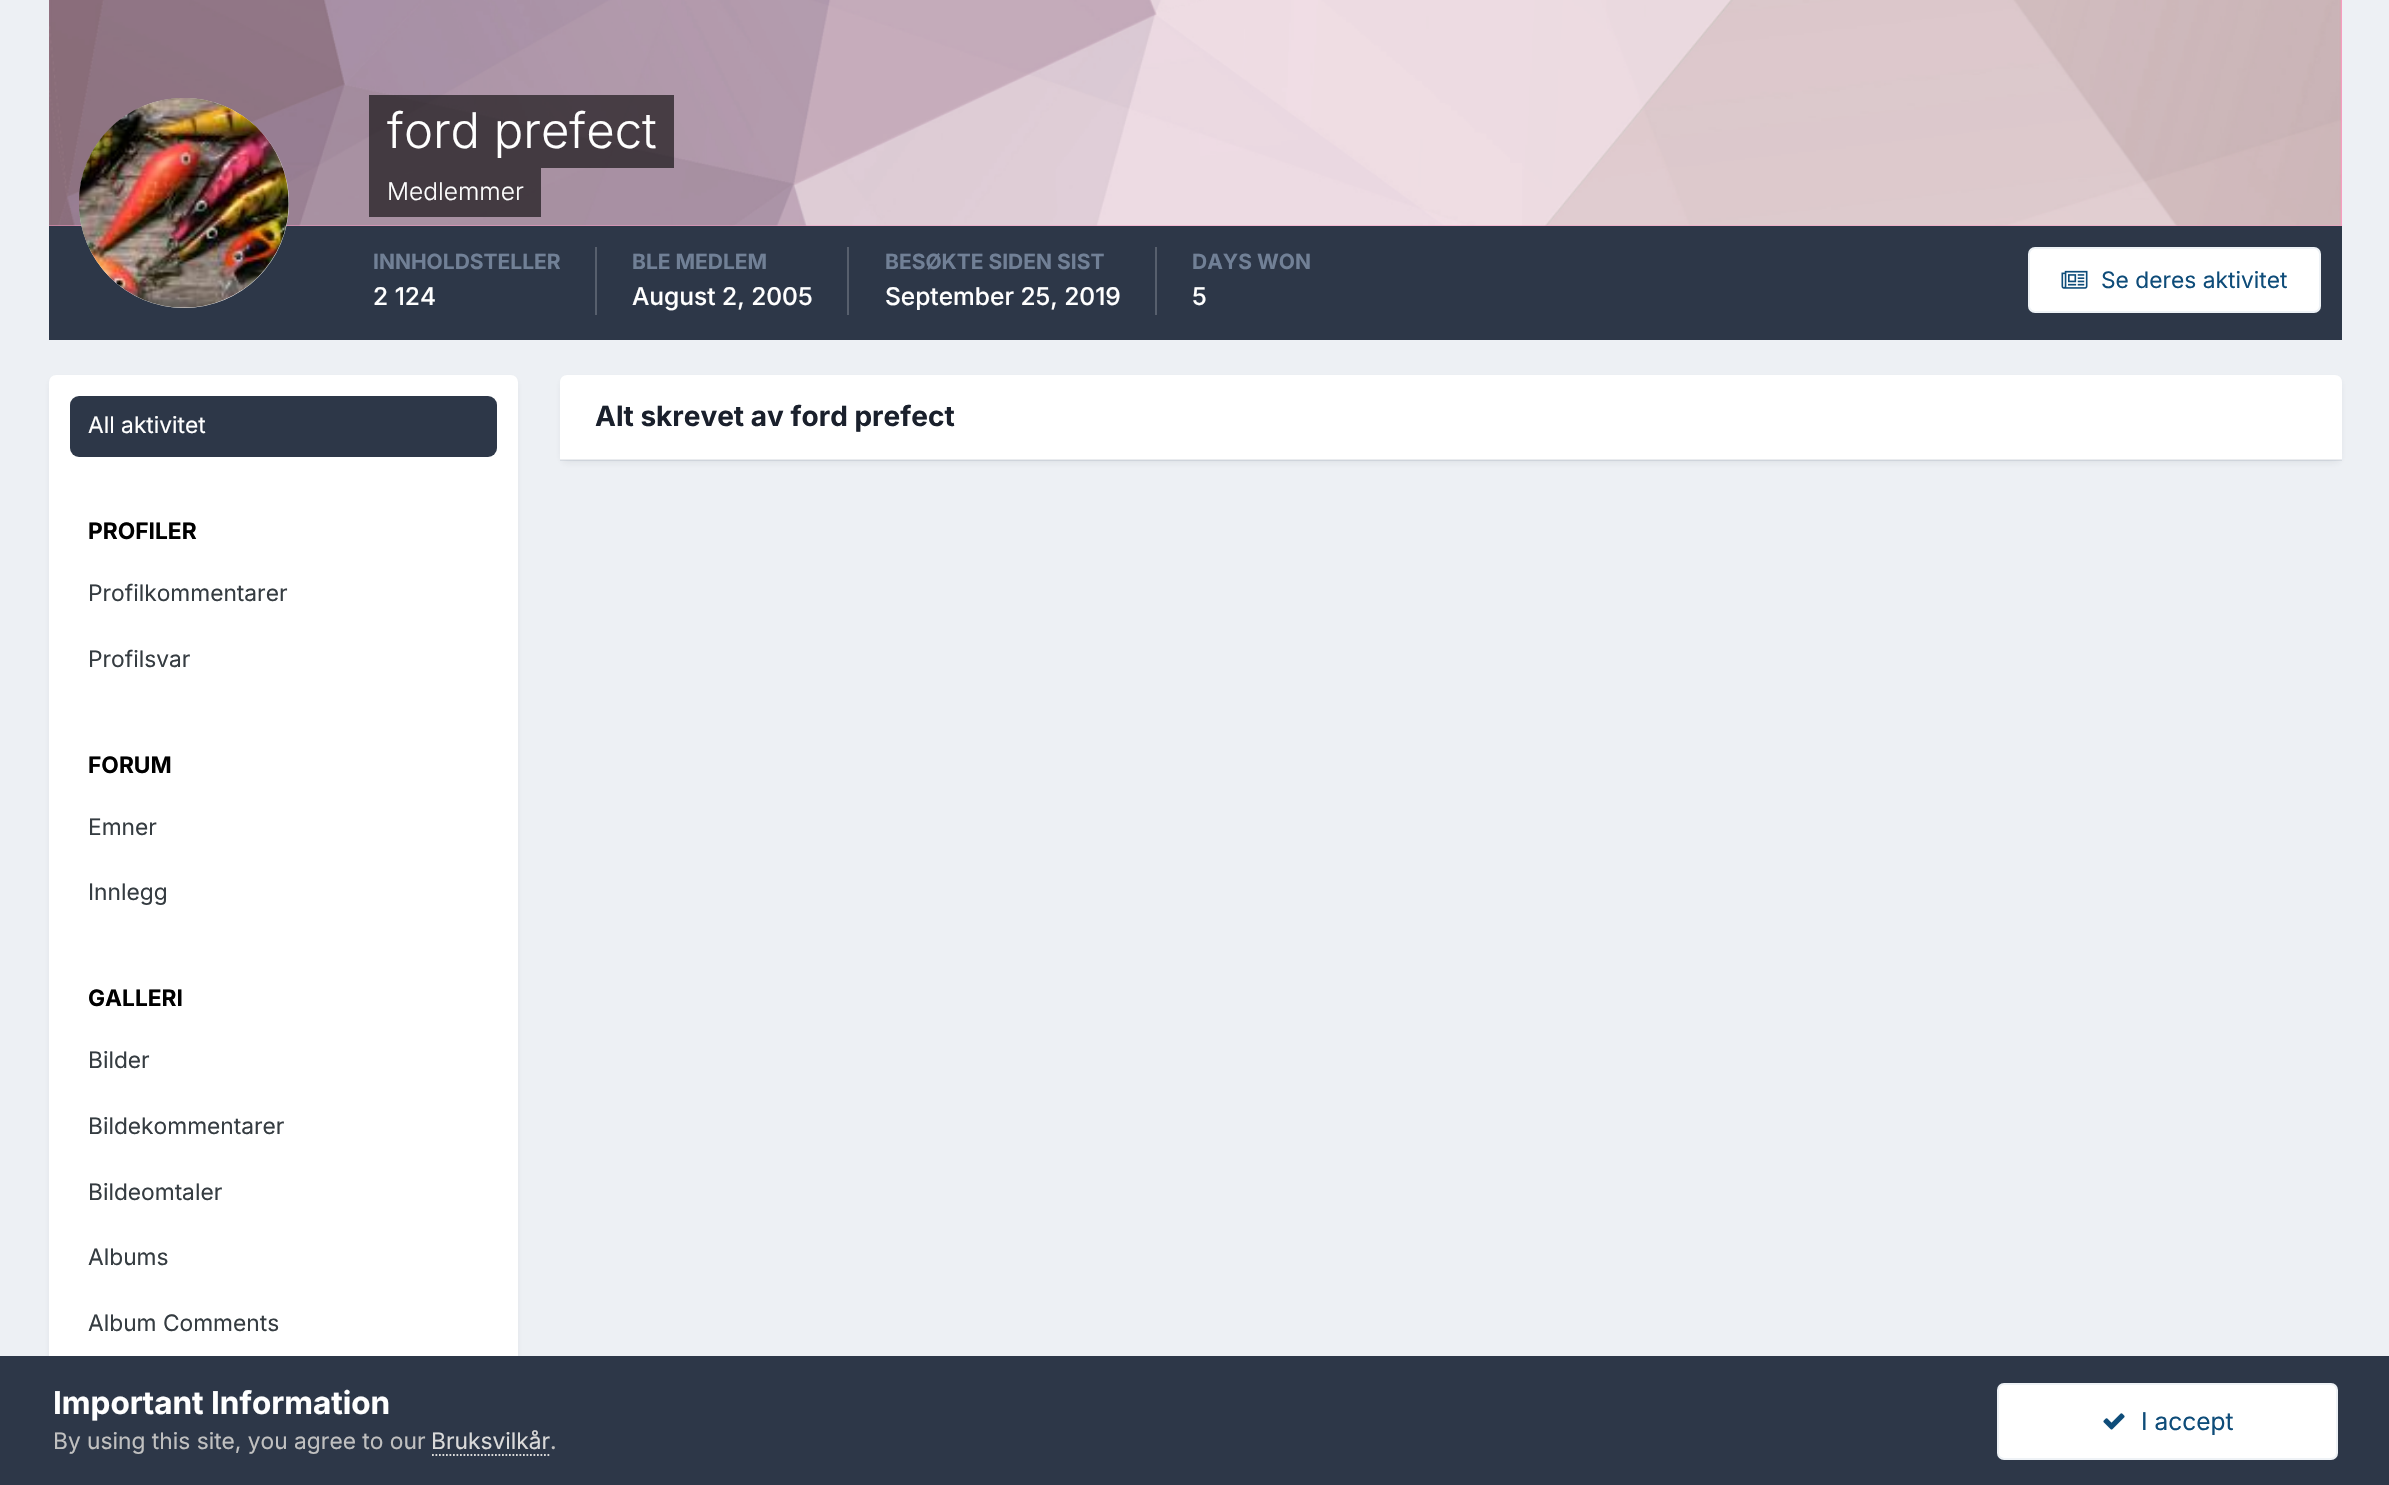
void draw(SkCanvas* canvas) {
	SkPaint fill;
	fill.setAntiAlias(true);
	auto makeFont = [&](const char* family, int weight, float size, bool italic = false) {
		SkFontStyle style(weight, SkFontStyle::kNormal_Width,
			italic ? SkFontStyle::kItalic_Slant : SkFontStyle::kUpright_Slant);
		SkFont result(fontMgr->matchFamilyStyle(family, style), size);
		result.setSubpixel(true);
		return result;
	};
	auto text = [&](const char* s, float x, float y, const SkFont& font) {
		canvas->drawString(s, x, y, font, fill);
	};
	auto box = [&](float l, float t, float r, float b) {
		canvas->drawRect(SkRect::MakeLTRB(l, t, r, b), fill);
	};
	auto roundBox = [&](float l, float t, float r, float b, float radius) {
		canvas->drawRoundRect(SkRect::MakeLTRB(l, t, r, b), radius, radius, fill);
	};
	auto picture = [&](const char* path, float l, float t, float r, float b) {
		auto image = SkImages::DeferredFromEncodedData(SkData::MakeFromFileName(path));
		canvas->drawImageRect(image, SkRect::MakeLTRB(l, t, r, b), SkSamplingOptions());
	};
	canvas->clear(0xFFEDF0F4);
	fill.setColor(0xFFFF99C5);
	box(49, 0, 2342, 226);
	picture("image0.png", 49, 0, 2342, 226);
	fill.setColor(0xFF2D3748);
	box(49, 226, 2342, 340);
	fill.setColor(0xFFFFFFFF);
	canvas->drawCircle(184, 203, 105, fill);
	picture("image1.png", 79, 98, 289, 308);
	fill.setColor(0x99000000);
	box(369, 95, 674, 168);
	box(369, 168, 541, 217);
	fill.setColor(0xFF575F6D);
	box(595, 247, 597, 315);
	box(847, 247, 849, 315);
	box(1155, 247, 1157, 315);
	fill.setColor(0xFFFFFFFF);
	roundBox(2028, 247, 2321, 313, 7);
	fill.setStyle(SkPaint::kStroke_Style);
	fill.setStrokeWidth(2);
	fill.setColor(0x120E4C79);
	canvas->drawRoundRect(SkRect::MakeLTRB(2029, 248, 2320, 312), 6, 6, fill);
	picture("image2.png", 2061, 270, 2088, 289);
	fill.setStyle(SkPaint::kFill_Style);
	fill.setColor(0x1A2D3748);
	fill.setMaskFilter(SkMaskFilter::MakeBlur(kNormal_SkBlurStyle, 3.5f));
	canvas->drawRoundRect(SkRect::MakeLTRB(51, 380, 516, 1453), 5, 5, fill);
	fill.setMaskFilter(nullptr);
	fill.setColor(0xFFFFFFFF);
	roundBox(49, 375, 518, 1451, 7);
	fill.setColor(0xFF2D3748);
	roundBox(70, 396, 497, 457, 9);
	fill.setColor(0x1A2D3748);
	fill.setMaskFilter(SkMaskFilter::MakeBlur(kNormal_SkBlurStyle, 3.5f));
	canvas->drawRoundRect(SkRect::MakeLTRB(562, 380, 2340, 462), 5, 5, fill);
	fill.setMaskFilter(nullptr);
	fill.setColor(0xFFFFFFFF);
	canvas->drawPath(SkPathBuilder().moveTo(567, 375).lineTo(2335, 375).cubicTo(2339, 375, 2342, 378, 2342, 382).lineTo(2342, 460).lineTo(560, 460).lineTo(560, 382).cubicTo(560, 378, 563, 375, 567, 375).close().detach(), fill);
	fill.setColor(0x26718096);
	box(560, 459, 2342, 461);
	fill.setColor(0xFF2D3748);
	box(0, 1356, 2389, 1485);
	fill.setStyle(SkPaint::kStroke_Style);
	fill.setStrokeWidth(1.8f);
	fill.setColor(0xFFDADADA);
	fill.setPathEffect(SkDashPathEffect::Make({{1.75f, 1.75f}}, 0));
	canvas->drawPath(SkPathBuilder().moveTo(432, 1455).lineTo(551, 1455).detach(), fill);
	fill.setPathEffect(nullptr);
	fill.setStyle(SkPaint::kFill_Style);
	fill.setColor(0xFFFFFFFF);
	roundBox(1997, 1383, 2338, 1460, 7);
	fill.setStyle(SkPaint::kStroke_Style);
	fill.setStrokeWidth(2);
	fill.setColor(0x120E4C79);
	canvas->drawRoundRect(SkRect::MakeLTRB(1998, 1384, 2337, 1459), 6, 6, fill);
	picture("image3.png", 2103, 1413, 2125, 1430);
	auto font1 = makeFont("Inter", 300, 49);
	fill.setStyle(SkPaint::kFill_Style);
	fill.setColor(0xFFFFFFFF);
	text("ford prefect", 387, 148, font1);
	auto font2 = makeFont("Inter", 300, 24.5f);
	text("Medlemmer", 387, 200, font2);
	auto font3 = makeFont("Inter", 700, 21);
	fill.setColor(0xFF718096);
	text("INNHOLDSTELLER", 373, 269, font3);
	auto font4 = makeFont("Inter", 500, 24.5f);
	fill.setColor(0xFFFFFFFF);
	text("2 124", 373, 305, font4);
	fill.setColor(0xFF718096);
	text("BLE MEDLEM", 632, 269, font3);
	fill.setColor(0xFFFFFFFF);
	text("August 2, 2005", 632, 305, font4);
	fill.setColor(0xFF718096);
	text("BESØKTE SIDEN SIST", 885, 269, font3);
	fill.setColor(0xFFFFFFFF);
	text("September 25, 2019", 885, 305, font4);
	fill.setColor(0xFF718096);
	text("DAYS WON", 1192, 269, font3);
	fill.setColor(0xFFFFFFFF);
	text("5", 1192, 305, font4);
	auto font5 = makeFont("Inter", 400, 22.75f);
	fill.setColor(0xFF0E4C79);
	text("Se deres aktivitet", 2101, 288, font5);
	fill.setColor(0xFFFFFFFF);
	text("All aktivitet", 88, 433, font5);
	auto font6 = makeFont("Inter", 700, 22.75f);
	fill.setColor(0xFF000000);
	text("PROFILER", 88, 539, font6);
	fill.setColor(0xFF353C41);
	text("Profilkommentarer", 88, 601, font5);
	text("Profilsvar", 88, 667, font5);
	fill.setColor(0xFF000000);
	text("FORUM", 88, 773, font6);
	fill.setColor(0xFF353C41);
	text("Emner", 88, 835, font5);
	text("Innlegg", 88, 900, font5);
	fill.setColor(0xFF000000);
	text("GALLERI", 88, 1006, font6);
	fill.setColor(0xFF353C41);
	text("Bilder", 88, 1068, font5);
	text("Bildekommentarer", 88, 1134, font5);
	text("Bildeomtaler", 88, 1200, font5);
	text("Albums", 88, 1265, font5);
	text("Album Comments", 88, 1331, font5);
	auto font7 = makeFont("Inter", 700, 28);
	fill.setColor(0xFF1A202C);
	text("Alt skrevet av ford prefect", 595, 426, font7);
	auto font8 = makeFont("Inter", 700, 31.5f);
	fill.setColor(0xFFFFFFFF);
	text("Important Information", 53, 1414, font8);
	fill.setColor(0xFFC0C0C0);
	text("By using this site, you agree to our", 53, 1449, font5);
	fill.setColor(0xFFDADADA);
	text("Bruksvilkår", 431, 1449, font5);
	fill.setColor(0xFFC0C0C0);
	text(".", 550, 1449, font5);
	auto font9 = makeFont("Inter", 400, 24.5f);
	fill.setColor(0xFF0E4C79);
	text("I accept", 2141, 1430, font9);
}
